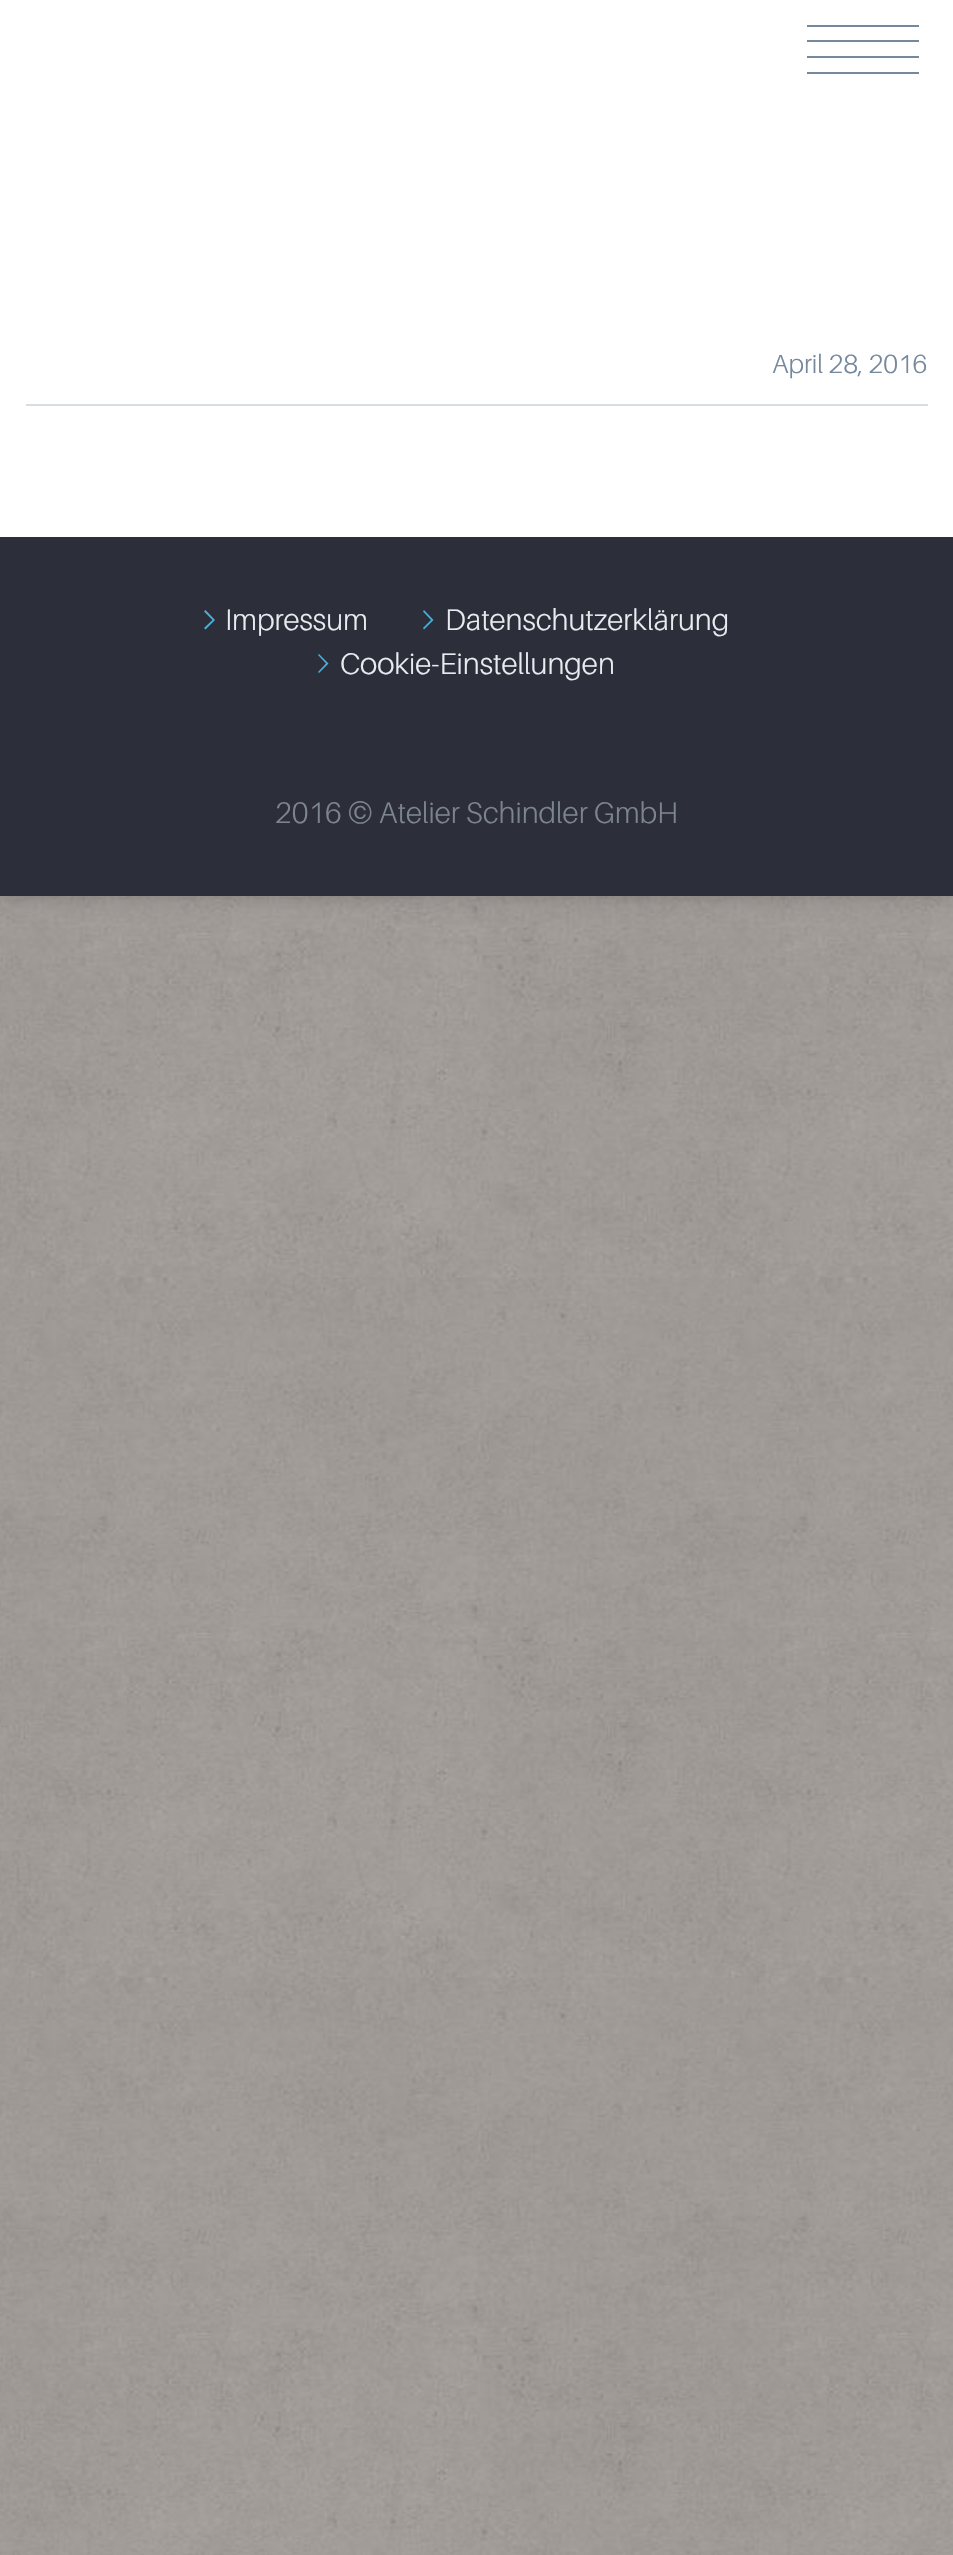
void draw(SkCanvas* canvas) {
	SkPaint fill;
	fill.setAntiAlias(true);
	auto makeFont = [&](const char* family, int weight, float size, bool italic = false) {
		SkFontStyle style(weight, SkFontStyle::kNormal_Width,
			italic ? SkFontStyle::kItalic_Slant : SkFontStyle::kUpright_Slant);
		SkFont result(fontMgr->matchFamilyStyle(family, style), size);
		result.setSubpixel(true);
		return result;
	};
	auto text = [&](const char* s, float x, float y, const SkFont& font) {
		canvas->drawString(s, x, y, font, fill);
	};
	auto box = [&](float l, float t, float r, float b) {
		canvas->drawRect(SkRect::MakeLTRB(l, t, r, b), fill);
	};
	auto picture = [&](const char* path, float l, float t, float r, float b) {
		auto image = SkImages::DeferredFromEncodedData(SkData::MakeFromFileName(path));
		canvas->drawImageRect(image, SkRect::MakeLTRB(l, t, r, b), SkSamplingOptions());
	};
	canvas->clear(0xFFFFFFFF);
	picture("image0.png", 0, 896, 953, 2555);
	fill.setColor(0x33000000);
	fill.setMaskFilter(SkMaskFilter::MakeBlur(kNormal_SkBlurStyle, 9.5f));
	canvas->drawRect(SkRect::MakeLTRB(0, 0, 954, 896), fill);
	fill.setMaskFilter(nullptr);
	fill.setColor(0xFFFFFFFF);
	box(0, 0, 953, 537);
	fill.setColor(0xFF75889C);
	box(807, 72, 919, 74);
	box(807, 56, 919, 58);
	box(807, 40, 919, 42);
	box(807, 25, 919, 27);
	fill.setColor(0xFFD6DDE3);
	box(26, 404, 928, 406);
	fill.setColor(0xFF2C2E3A);
	box(0, 537, 953, 896);
	fill.setColor(0xFF48AFDB);
	canvas->drawPath(SkPathBuilder().moveTo(205.5f, 610).lineTo(204, 611.5f).lineTo(212.5f, 620).lineTo(204, 628).lineTo(205.5f, 629.5f).lineTo(215, 620).close().detach(), fill);
	canvas->drawPath(SkPathBuilder().moveTo(424, 610).lineTo(423, 611.5f).lineTo(431, 620).lineTo(423, 628).lineTo(424, 629.5f).lineTo(433.5f, 620).close().detach(), fill);
	canvas->drawPath(SkPathBuilder().moveTo(319, 654).lineTo(318, 655).lineTo(326, 663.5f).lineTo(318, 672).lineTo(319, 673).lineTo(328.5f, 663.5f).close().detach(), fill);
	auto font1 = makeFont("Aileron", 300, 26.25f);
	fill.setColor(0xFF75889C);
	text("April 28, 2016", 772, 373, font1);
	auto font2 = makeFont("Aileron", 300, 29.75f);
	fill.setColor(0xFFE8ECEF);
	text("Impressum", 225, 630, font2);
	text("Datenschutzerklärung", 445, 630, font2);
	text("Cookie-Einstellungen", 340, 674, font2);
	fill.setColor(0xFF7B848F);
	text("2016 © Atelier Schindler GmbH", 275, 823, font2);
}
